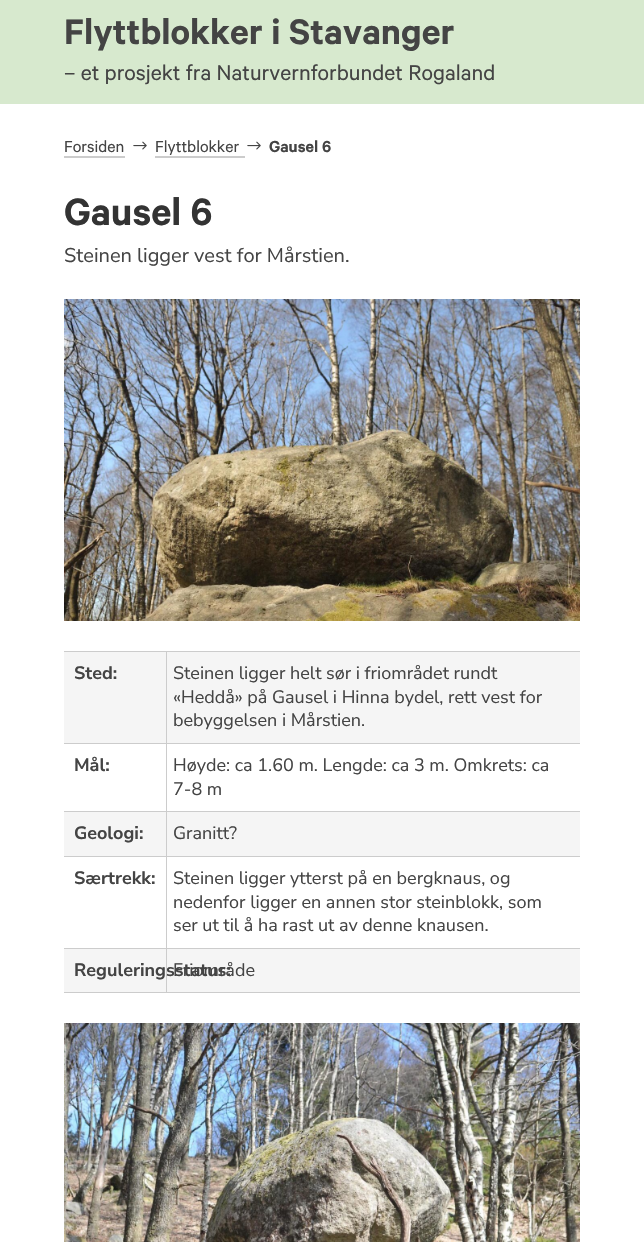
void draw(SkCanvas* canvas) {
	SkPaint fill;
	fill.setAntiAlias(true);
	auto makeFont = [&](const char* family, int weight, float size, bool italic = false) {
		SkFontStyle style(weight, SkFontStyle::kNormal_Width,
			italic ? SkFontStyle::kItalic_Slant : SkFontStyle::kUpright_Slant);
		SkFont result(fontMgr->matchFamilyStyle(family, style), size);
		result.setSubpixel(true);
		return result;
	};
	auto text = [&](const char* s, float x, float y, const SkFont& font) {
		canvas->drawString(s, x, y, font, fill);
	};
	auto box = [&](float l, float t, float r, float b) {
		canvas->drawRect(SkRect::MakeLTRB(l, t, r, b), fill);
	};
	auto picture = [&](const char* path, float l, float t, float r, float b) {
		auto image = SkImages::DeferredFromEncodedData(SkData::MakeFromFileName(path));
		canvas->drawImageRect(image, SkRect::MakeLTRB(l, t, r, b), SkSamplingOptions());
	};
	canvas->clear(0xFFFFFFFF);
	fill.setColor(0xFFD7E9CE);
	box(0, 0, 644, 104);
	fill.setColor(0xFFCCCCCC);
	box(64, 156, 125, 158);
	picture("image0.png", 133, 141, 147, 150);
	box(155, 156, 245, 158);
	picture("image0.png", 247, 141, 261, 150);
	picture("image1.png", 64, 299, 580, 621);
	fill.setColor(0xFFF5F5F5);
	box(64, 652, 580, 743);
	fill.setColor(0xFFCCCCCC);
	box(64, 651, 580, 652);
	box(64, 743, 580, 744);
	box(166, 652, 167, 743);
	box(64, 811, 580, 812);
	box(166, 744, 167, 811);
	fill.setColor(0xFFF5F5F5);
	box(64, 812, 580, 856);
	fill.setColor(0xFFCCCCCC);
	box(64, 856, 580, 857);
	box(166, 812, 167, 856);
	box(64, 948, 580, 949);
	box(166, 857, 167, 948);
	fill.setColor(0xFFF5F5F5);
	box(64, 949, 580, 992);
	fill.setColor(0xFFCCCCCC);
	box(64, 992, 580, 993);
	box(166, 949, 167, 992);
	picture("image2.png", 64, 1023, 580, 1242);
	auto font1 = makeFont("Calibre", 600, 40);
	fill.setColor(0xFF444444);
	text("Flyttblokker i Stavanger", 64, 44, font1);
	auto font2 = makeFont("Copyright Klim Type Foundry", 400, 24);
	text("– et prosjekt fra Naturvernforbundet Rogaland", 64, 80, font2);
	auto font3 = makeFont("Copyright Klim Type Foundry", 400, 18);
	text("Forsiden", 64, 152, font3);
	text("Flyttblokker", 155, 152, font3);
	auto font4 = makeFont("Calibre", 600, 18);
	text("Gausel 6", 269, 152, font4);
	auto font5 = makeFont("Calibre", 600, 43);
	fill.setColor(0xFF333333);
	text("Gausel 6", 64, 225, font5);
	auto font6 = makeFont("Nunito Sans", 400, 20);
	fill.setColor(0xFF444444);
	text("Steinen ligger vest for Mårstien.", 64, 262, font6);
	auto font7 = makeFont("Nunito Sans", 700, 18);
	text("Sted:", 74, 679, font7);
	auto font8 = makeFont("Nunito Sans", 400, 18);
	text("Steinen ligger helt sør i friområdet rundt", 173, 679, font8);
	text("«Heddå» på Gausel i Hinna bydel, rett vest for", 173, 703, font8);
	text("bebyggelsen i Mårstien.", 173, 726, font8);
	text("Mål:", 74, 771, font7);
	text("Høyde: ca 1.60 m. Lengde: ca 3 m. Omkrets: ca", 173, 771, font8);
	text("7-8 m", 173, 795, font8);
	text("Geologi:", 74, 839, font7);
	text("Granitt?", 173, 839, font8);
	text("Særtrekk:", 74, 884, font7);
	text("Steinen ligger ytterst på en bergknaus, og", 173, 884, font8);
	text("nedenfor ligger en annen stor steinblokk, som", 173, 908, font8);
	text("ser ut til å ha rast ut av denne knausen.", 173, 931, font8);
	text("Friområde", 173, 976, font8);
	text("Reguleringsstatus:", 74, 976, font7);
}
